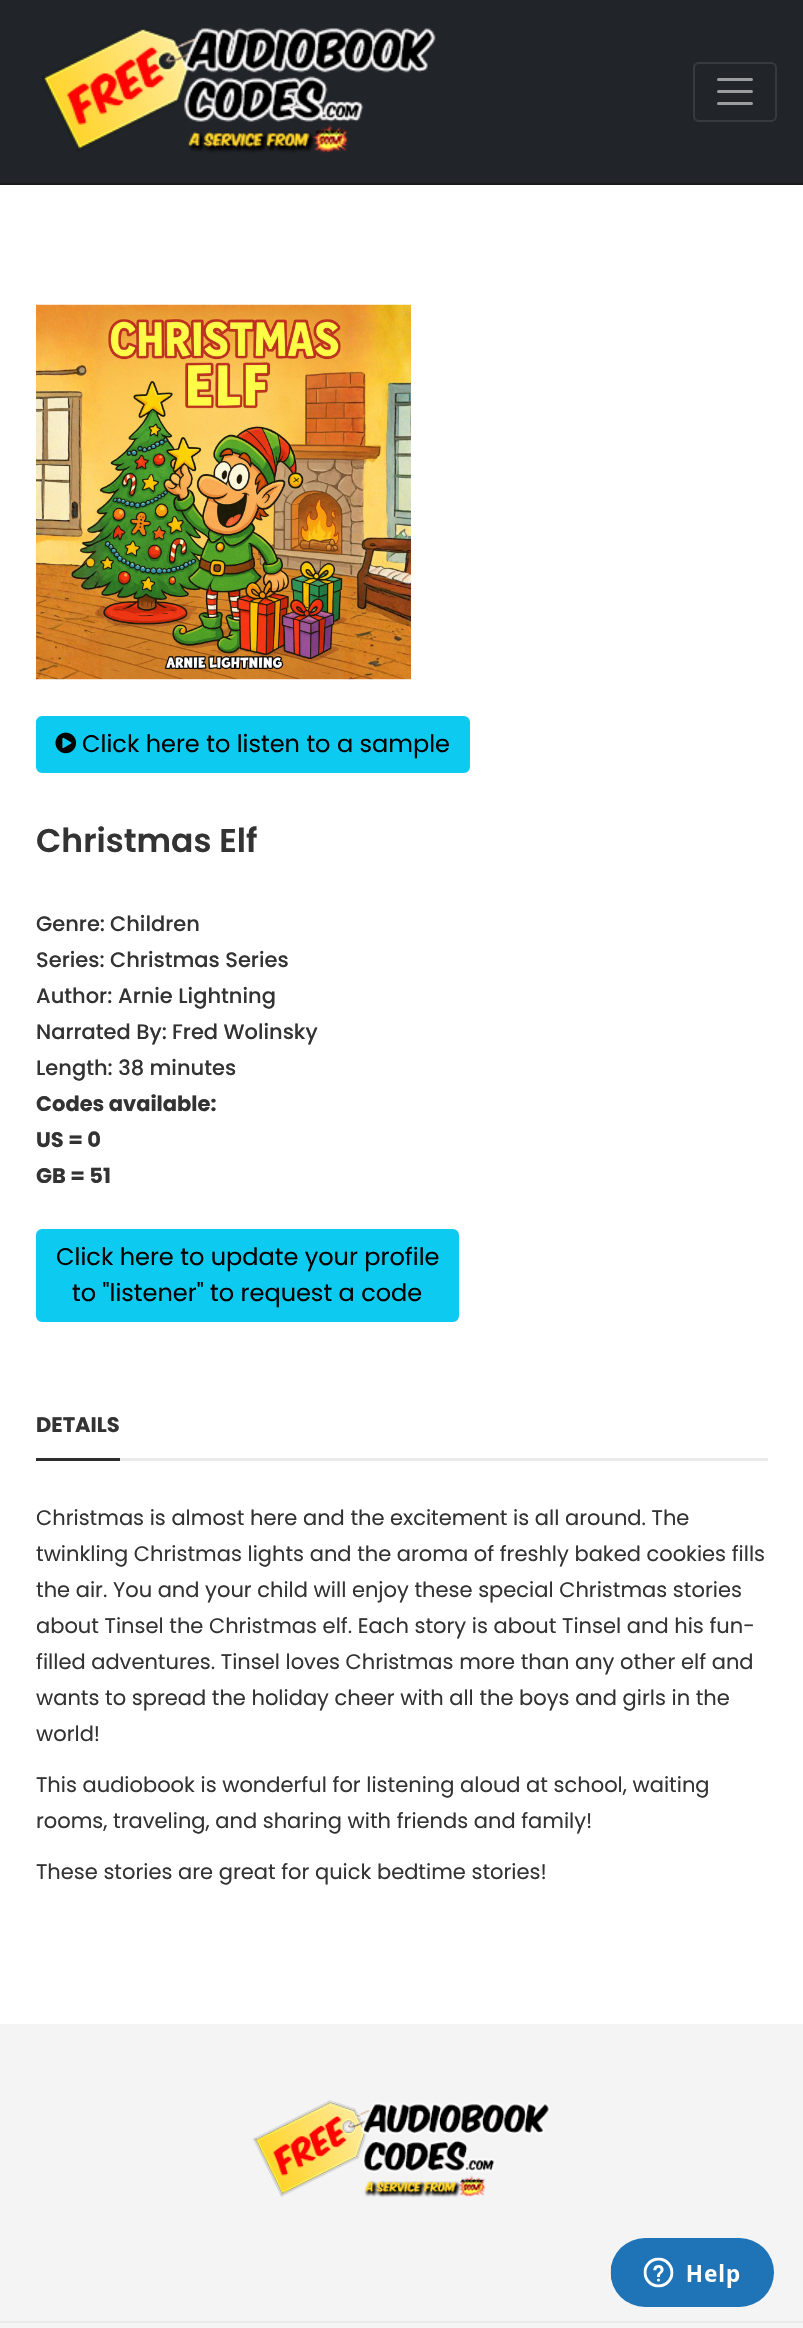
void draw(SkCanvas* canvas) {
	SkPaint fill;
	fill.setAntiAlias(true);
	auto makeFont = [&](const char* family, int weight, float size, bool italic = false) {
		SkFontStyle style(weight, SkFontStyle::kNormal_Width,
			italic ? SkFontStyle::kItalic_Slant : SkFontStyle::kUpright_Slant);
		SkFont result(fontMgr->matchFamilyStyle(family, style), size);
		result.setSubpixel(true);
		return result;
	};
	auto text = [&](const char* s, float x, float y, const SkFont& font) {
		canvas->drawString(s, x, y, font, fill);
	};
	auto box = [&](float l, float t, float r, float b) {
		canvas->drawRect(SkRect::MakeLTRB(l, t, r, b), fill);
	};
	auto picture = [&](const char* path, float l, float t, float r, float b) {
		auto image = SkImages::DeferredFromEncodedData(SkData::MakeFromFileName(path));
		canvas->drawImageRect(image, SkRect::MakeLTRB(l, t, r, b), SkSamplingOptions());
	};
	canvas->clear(0xFFFFFFFF);
	fill.setColor(0xFF1A1A1A);
	box(0, 183, 803, 185);
	fill.setColor(0xFF212529);
	box(0, 0, 803, 183);
	picture("image0.png", 41, 27, 436, 153);
	fill.setStyle(SkPaint::kStroke_Style);
	fill.setStrokeWidth(2);
	fill.setColor(0xFF373B3E);
	canvas->drawRoundRect(SkRect::MakeLTRB(694, 63, 776, 121), 5, 5, fill);
	fill.setStrokeWidth(3);
	fill.setStrokeCap(SkPaint::kRound_Cap);
	fill.setColor(0xFF9B9D9F);
	canvas->drawPath(SkPathBuilder().moveTo(718.5f, 79.5f).lineTo(751.5f, 79.5f).moveTo(718.5f, 91.5f).lineTo(751.5f, 91.5f).moveTo(718.5f, 103.5f).lineTo(751.5f, 103.5f).detach(), fill);
	picture("image1.png", 36, 304, 411, 680);
	fill.setStyle(SkPaint::kFill_Style);
	fill.setColor(0xFF0DCAF0);
	canvas->drawRoundRect(SkRect::MakeLTRB(37, 717, 469, 772), 5, 5, fill);
	fill.setStyle(SkPaint::kStroke_Style);
	fill.setStrokeWidth(2);
	fill.setStrokeCap(SkPaint::kButt_Cap);
	canvas->drawRoundRect(SkRect::MakeLTRB(37, 717, 469, 772), 5, 5, fill);
	picture("image2.png", 55, 732, 77, 754);
	fill.setStyle(SkPaint::kFill_Style);
	canvas->drawRoundRect(SkRect::MakeLTRB(37, 1230, 458, 1321), 5, 5, fill);
	fill.setStyle(SkPaint::kStroke_Style);
	canvas->drawRoundRect(SkRect::MakeLTRB(37, 1230, 458, 1321), 5, 5, fill);
	fill.setStyle(SkPaint::kFill_Style);
	fill.setColor(0xFFEBEBEB);
	box(120, 1458, 768, 1461);
	fill.setColor(0xFF2E2E2E);
	box(36, 1458, 120, 1461);
	fill.setColor(0xFFF4F4F4);
	box(0, 2024, 803, 2328);
	fill.setColor(0xFFEBEBEB);
	box(0, 2321, 803, 2323);
	picture("image3.png", 252, 2100, 551, 2198);
	picture("image4.png", 610, 2238, 774, 2307);
	auto font1 = makeFont("Poppins", 400, 24);
	fill.setColor(0xFF000000);
	text("Click here to listen to a sample", 82, 752, font1);
	auto font2 = makeFont("Poppins", 600, 33);
	fill.setColor(0xFF333333);
	text("Christmas Elf", 36, 852, font2);
	auto font3 = makeFont("Poppins", 500, 21);
	text("Genre:", 36, 931, font3);
	text("Children", 110, 931, font3);
	text("Series:", 36, 967, font3);
	text("Christmas Series", 110, 967, font3);
	text("Author:", 36, 1003, font3);
	text("Arnie Lightning", 118, 1003, font3);
	text("Narrated By:", 36, 1039, font3);
	text("Fred Wolinsky", 172, 1039, font3);
	text("Length: 38 minutes", 36, 1075, font3);
	auto font4 = makeFont("Poppins", 700, 21);
	text("Codes available:", 36, 1111, font4);
	text("US = 0", 36, 1147, font4);
	text("GB = 51", 36, 1183, font4);
	fill.setColor(0xFF000000);
	text("Click here to update your profile", 56, 1265, font1);
	text("to \"listener\" to request a code", 72, 1301, font1);
	fill.setColor(0xFF333333);
	text("DETAILS", 36, 1432, font4);
	auto font5 = makeFont("Poppins", 400, 21);
	text("Christmas is almost here and the excitement is all around. The", 36, 1525, font5);
	text("twinkling Christmas lights and the aroma of freshly baked cookies fills", 36, 1561, font5);
	text("the air. You and your child will enjoy these special Christmas stories", 36, 1597, font5);
	text("about Tinsel the Christmas elf. Each story is about Tinsel and his fun-", 36, 1633, font5);
	text("filled adventures. Tinsel loves Christmas more than any other elf and", 36, 1669, font5);
	text("wants to spread the holiday cheer with all the boys and girls in the", 36, 1705, font5);
	text("world!", 36, 1741, font5);
	text("This audiobook is wonderful for listening aloud at school, waiting", 36, 1792, font5);
	text("rooms, traveling, and sharing with friends and family!", 36, 1828, font5);
	text("These stories are great for quick bedtime stories!", 36, 1879, font5);
}
